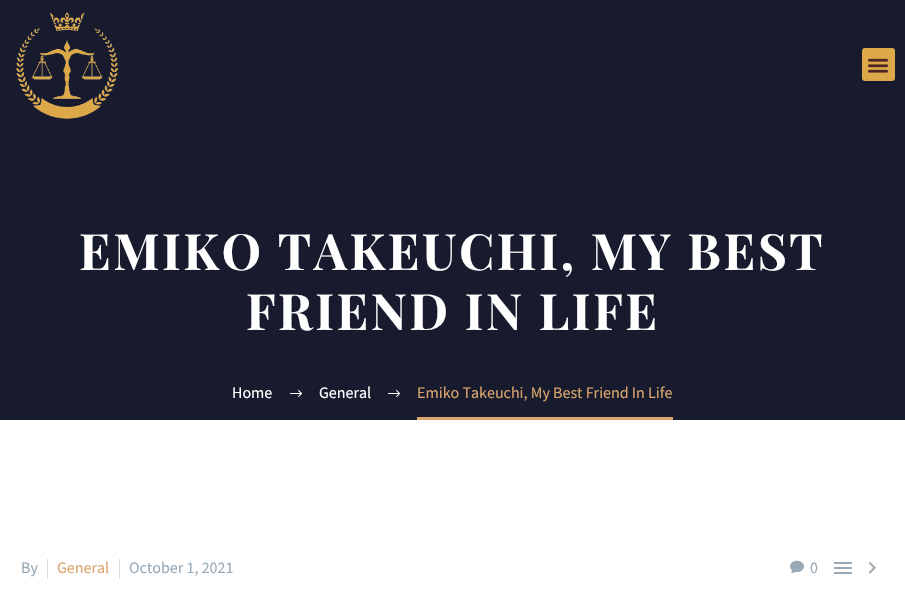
void draw(SkCanvas* canvas) {
	SkPaint fill;
	fill.setAntiAlias(true);
	auto makeFont = [&](const char* family, int weight, float size, bool italic = false) {
		SkFontStyle style(weight, SkFontStyle::kNormal_Width,
			italic ? SkFontStyle::kItalic_Slant : SkFontStyle::kUpright_Slant);
		SkFont result(fontMgr->matchFamilyStyle(family, style), size);
		result.setSubpixel(true);
		return result;
	};
	auto text = [&](const char* s, float x, float y, const SkFont& font) {
		canvas->drawString(s, x, y, font, fill);
	};
	auto spacedText = [&](const char* s, float x, float y, const SkFont& font, const SkPaint& ink, float letter, float word) {
		std::vector<SkGlyphID> glyphs(font.countText(s, strlen(s), SkTextEncoding::kUTF8));
		std::vector<float> xs(glyphs.size());
		font.textToGlyphs(s, strlen(s), SkTextEncoding::kUTF8, glyphs);
		font.getXPos(glyphs, xs, x);
		float extra = 0;
		for (size_t i = 0; i < glyphs.size(); i++) {
			xs[i] += extra;
			extra += letter + word * (glyphs[i] == font.unicharToGlyph(' '));
		}
		canvas->drawTextBlob(SkTextBlob::MakeFromPosHGlyphs(glyphs, xs, y, font), 0, 0, ink);
	};
	auto box = [&](float l, float t, float r, float b) {
		canvas->drawRect(SkRect::MakeLTRB(l, t, r, b), fill);
	};
	auto roundBox = [&](float l, float t, float r, float b, float radius) {
		canvas->drawRoundRect(SkRect::MakeLTRB(l, t, r, b), radius, radius, fill);
	};
	auto picture = [&](const char* path, float l, float t, float r, float b) {
		auto image = SkImages::DeferredFromEncodedData(SkData::MakeFromFileName(path));
		canvas->drawImageRect(image, SkRect::MakeLTRB(l, t, r, b), SkSamplingOptions());
	};
	canvas->clear(0xFFFFFFFF);
	fill.setColor(0xFF171B2D);
	box(0, 0, 905, 420);
	picture("image0.png", 16, 12, 119, 119);
	fill.setColor(0xFFDCA848);
	roundBox(862, 48, 895, 81, 3);
	picture("image1.png", 868, 58, 888, 73);
	picture("image2.png", 290, 390, 302, 397);
	picture("image2.png", 388, 390, 400, 397);
	fill.setColor(0xFFDBA66D);
	box(417, 417, 673, 420);
	fill.setColor(0xFFD4DEE1);
	box(47, 559, 48, 579);
	box(119, 559, 120, 579);
	picture("image3.png", 790, 560, 804, 573);
	picture("image4.png", 834, 562, 852, 574);
	picture("image5.png", 868, 562, 876, 574);
	auto font1 = makeFont("Playfair Display", 700, 50);
	fill.setColor(0xFFFFFFFF);
	spacedText("EMIKO TAKEUCHI, MY BEST", 79, 270, font1, fill, 2.5f, 0);
	spacedText("FRIEND IN LIFE", 246, 330, font1, fill, 2.5f, 0);
	auto font2 = makeFont("Source Sans Pro", 400, 16);
	text("Home", 232, 398, font2);
	text("General", 319, 398, font2);
	fill.setColor(0xFFDBA66D);
	text("Emiko Takeuchi, My Best Friend In Life", 417, 398, font2);
	fill.setColor(0xFF99A9B5);
	text("By", 21, 573, font2);
	fill.setColor(0xFFDBA66D);
	text("General", 57, 573, font2);
	fill.setColor(0xFF99A9B5);
	text("October 1, 2021", 129, 573, font2);
	text("0", 810, 573, font2);
}
